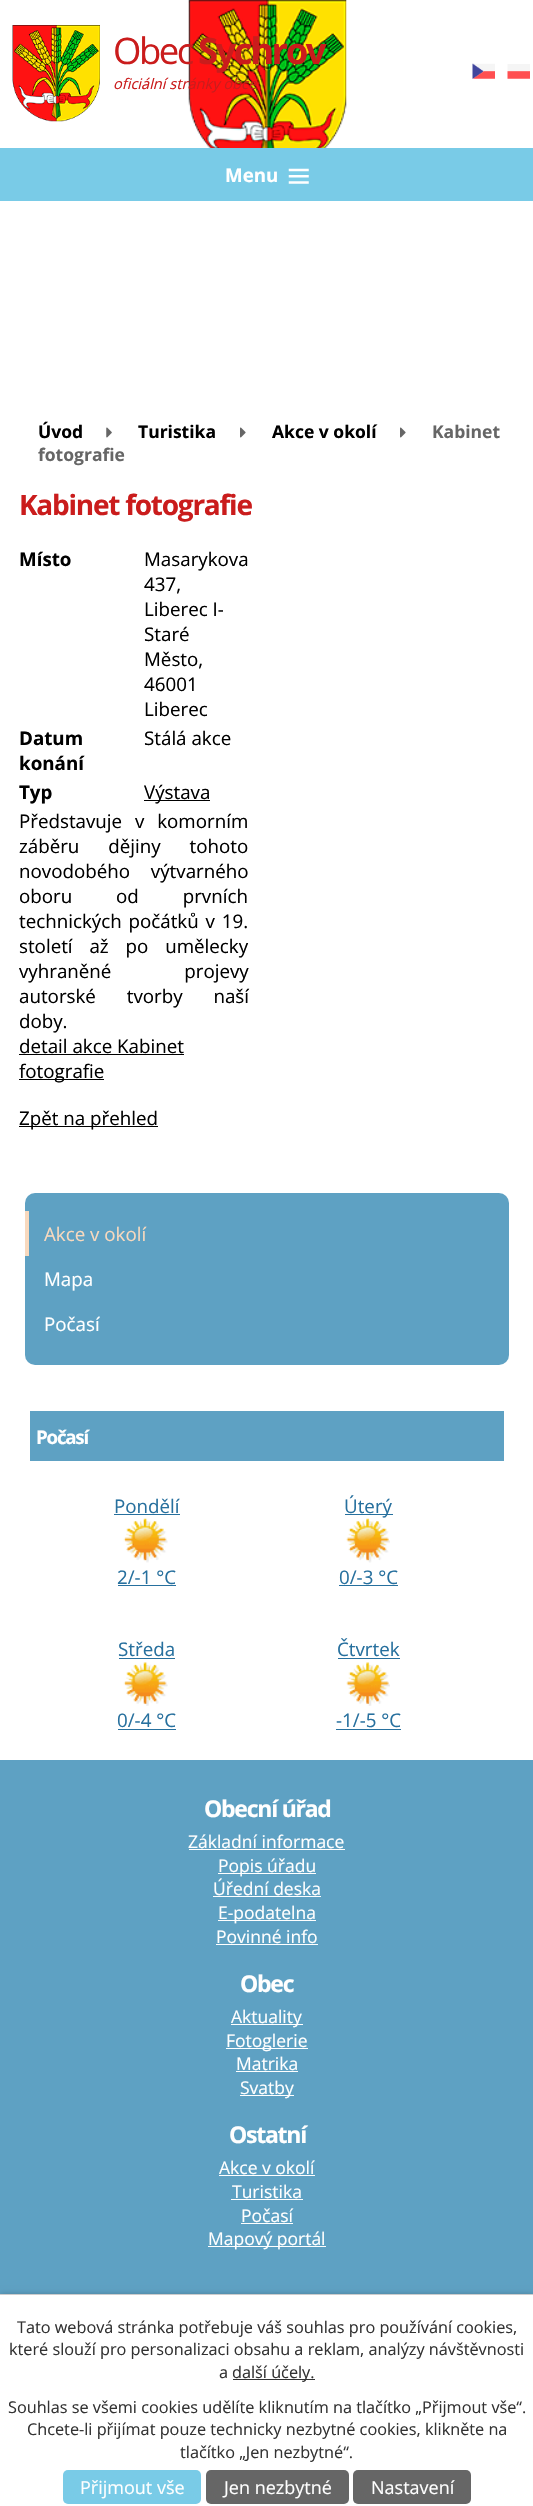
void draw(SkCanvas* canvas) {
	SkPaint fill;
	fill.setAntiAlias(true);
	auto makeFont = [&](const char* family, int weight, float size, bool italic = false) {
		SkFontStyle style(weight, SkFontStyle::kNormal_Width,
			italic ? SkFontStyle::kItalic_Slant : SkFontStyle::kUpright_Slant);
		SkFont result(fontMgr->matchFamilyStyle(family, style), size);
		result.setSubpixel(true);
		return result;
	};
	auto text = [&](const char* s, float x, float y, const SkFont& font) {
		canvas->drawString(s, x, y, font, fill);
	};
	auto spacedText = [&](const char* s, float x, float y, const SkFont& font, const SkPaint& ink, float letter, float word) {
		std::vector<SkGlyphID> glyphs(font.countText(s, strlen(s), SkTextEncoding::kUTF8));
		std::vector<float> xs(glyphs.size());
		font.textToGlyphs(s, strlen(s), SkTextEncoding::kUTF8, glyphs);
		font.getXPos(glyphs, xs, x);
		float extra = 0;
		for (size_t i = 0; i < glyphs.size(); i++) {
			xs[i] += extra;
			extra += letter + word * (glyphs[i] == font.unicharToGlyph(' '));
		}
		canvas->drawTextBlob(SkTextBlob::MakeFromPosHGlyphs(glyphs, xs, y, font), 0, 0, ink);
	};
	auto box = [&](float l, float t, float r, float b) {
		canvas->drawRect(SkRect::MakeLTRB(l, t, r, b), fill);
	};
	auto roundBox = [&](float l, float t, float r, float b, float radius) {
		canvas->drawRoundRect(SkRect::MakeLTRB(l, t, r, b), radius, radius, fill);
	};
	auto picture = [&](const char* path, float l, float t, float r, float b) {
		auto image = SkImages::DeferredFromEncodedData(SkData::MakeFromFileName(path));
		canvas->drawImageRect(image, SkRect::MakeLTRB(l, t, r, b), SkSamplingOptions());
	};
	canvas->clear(0xFFFFFFFF);
	picture("image0.png", 188, 0, 347, 148);
	picture("image1.png", 12, 25, 100, 122);
	picture("image2.png", 472, 63, 495, 79);
	picture("image3.png", 507, 64, 530, 79);
	fill.setColor(0xFF79CBE7);
	box(0, 148, 533, 201);
	picture("image4.png", 288, 168, 309, 184);
	picture("image5.png", 106, 427, 112, 438);
	picture("image6.png", 240, 427, 246, 438);
	picture("image6.png", 400, 427, 406, 438);
	fill.setColor(0xFF000000);
	box(144, 800, 210, 801);
	box(19, 1054, 184, 1055);
	box(19, 1079, 104, 1080);
	box(19, 1126, 158, 1127);
	fill.setColor(0xFF5EA1C3);
	roundBox(25, 1193, 509, 1365, 10);
	fill.setColor(0xFFF8D9BE);
	box(25, 1211, 29, 1256);
	fill.setColor(0xFF5EA1C3);
	box(30, 1411, 504, 1461);
	fill.setColor(0xFF27709E);
	box(114, 1514, 180, 1515);
	picture("image7.png", 123, 1518, 168, 1563);
	box(118, 1585, 176, 1586);
	box(345, 1514, 393, 1515);
	picture("image8.png", 346, 1518, 390, 1563);
	box(339, 1585, 398, 1586);
	box(119, 1658, 175, 1659);
	picture("image9.png", 123, 1662, 168, 1706);
	box(118, 1729, 176, 1730);
	box(338, 1658, 400, 1659);
	picture("image10.png", 346, 1662, 390, 1706);
	box(336, 1729, 401, 1730);
	fill.setColor(0xFF5EA1C3);
	box(0, 1760, 533, 2294);
	fill.setColor(0xFFFFFFFF);
	box(189, 1849, 345, 1850);
	box(218, 1873, 316, 1874);
	box(213, 1896, 321, 1897);
	box(218, 1920, 316, 1921);
	box(216, 1944, 318, 1945);
	box(231, 2024, 303, 2025);
	box(226, 2048, 308, 2049);
	box(236, 2071, 298, 2072);
	box(240, 2095, 294, 2096);
	box(219, 2175, 315, 2176);
	box(231, 2199, 303, 2200);
	box(241, 2223, 293, 2224);
	box(208, 2246, 326, 2247);
	fill.setColor(0x33000000);
	fill.setMaskFilter(SkMaskFilter::MakeBlur(kNormal_SkBlurStyle, 3));
	canvas->drawRect(SkRect::MakeLTRB(0, 2294, 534, 2506), fill);
	fill.setMaskFilter(nullptr);
	fill.setColor(0xFFFFFFFF);
	box(0, 2295, 533, 2506);
	fill.setColor(0xFFCCCCCC);
	box(0, 2294, 533, 2295);
	fill.setColor(0xFF333333);
	box(233, 2379, 315, 2380);
	fill.setColor(0xFF79CBE7);
	roundBox(63, 2470, 201, 2504, 5);
	fill.setColor(0xFF666666);
	roundBox(206, 2470, 349, 2504, 5);
	roundBox(353, 2470, 471, 2504, 5);
	auto font1 = makeFont("Open Sans", 400, 36.5f);
	fill.setColor(0xFFCA1C1C);
	spacedText("Obec", 113, 64, font1, fill, -2.5f, 0);
	auto font2 = makeFont("Open Sans", 700, 36.5f);
	spacedText("Sychrov", 198, 64, font2, fill, -2.5f, 0);
	auto font3 = makeFont("Open Sans", 400, 14.6f, true);
	text("oficiální stránky obce", 113, 89, font3);
	auto font4 = makeFont("Open Sans", 700, 18.75f);
	fill.setColor(0xFFFFFFFF);
	text("Menu", 225, 182, font4);
	auto font5 = makeFont("Open Sans", 700, 17.5f);
	fill.setColor(0xFF000000);
	text("Úvod", 38, 438, font5);
	text("Turistika", 138, 438, font5);
	text("Akce v okolí", 272, 438, font5);
	fill.setColor(0xFF666666);
	text("Kabinet", 432, 438, font5);
	text("fotografie", 38, 461, font5);
	auto font6 = makeFont("Open Sans", 700, 28);
	fill.setColor(0xFFCA1C1C);
	spacedText("Kabinet fotografie", 19, 515, font6, fill, -1.25f, 0);
	fill.setColor(0xFF000000);
	text("Místo", 19, 566, font4);
	auto font7 = makeFont("Open Sans", 400, 18.75f);
	text("Masarykova", 144, 566, font7);
	text("437,", 144, 591, font7);
	text("Liberec I-", 144, 616, font7);
	text("Staré", 144, 641, font7);
	text("Město,", 144, 666, font7);
	text("46001", 144, 691, font7);
	text("Liberec", 144, 716, font7);
	text("Datum", 19, 745, font4);
	text("konání", 19, 770, font4);
	text("Stálá akce", 144, 745, font7);
	text("Typ", 19, 799, font4);
	text("Výstava", 144, 799, font7);
	spacedText("Představuje v komorním", 19, 828, font7, fill, 0, 8);
	spacedText("záběru dějiny tohoto", 19, 853, font7, fill, 0, 24);
	spacedText("novodobého výtvarného", 19, 878, font7, fill, 0, 16);
	spacedText("oboru od prvních", 19, 903, font7, fill, 0, 39);
	spacedText("technických počátků v 19.", 19, 928, font7, fill, 0, 2);
	spacedText("století až po umělecky", 19, 953, font7, fill, 0, 12);
	spacedText("vyhraněné projevy", 19, 978, font7, fill, 0, 68);
	spacedText("autorské tvorby naší", 19, 1003, font7, fill, 0, 26);
	text("doby.", 19, 1028, font7);
	text("detail akce Kabinet", 19, 1053, font7);
	text("fotografie", 19, 1078, font7);
	text("Zpět na přehled", 19, 1125, font7);
	fill.setColor(0xFFF8D9BE);
	text("Akce v okolí", 44, 1241, font7);
	fill.setColor(0xFFFFFFFF);
	text("Mapa", 44, 1286, font7);
	text("Počasí", 44, 1331, font7);
	spacedText("Počasí", 36, 1444, font4, fill, -1.25f, 0);
	fill.setColor(0xFF27709E);
	text("Pondělí", 114, 1513, font7);
	text("2/-1 °C", 117, 1584, font7);
	text("Úterý", 344, 1513, font7);
	text("0/-3 °C", 339, 1584, font7);
	text("Středa", 118, 1656, font7);
	text("0/-4 °C", 117, 1727, font7);
	text("Čtvrtek", 337, 1656, font7);
	text("-1/-5 °C", 336, 1727, font7);
	auto font8 = makeFont("Open Sans", 700, 23);
	fill.setColor(0xFFFFFFFF);
	spacedText("Obecní úřad", 204, 1817, font8, fill, -1.25f, 0);
	auto font9 = makeFont("Open Sans", 400, 17.5f);
	text("Základní informace", 188, 1848, font9);
	text("Popis úřadu", 218, 1872, font9);
	text("Úřední deska", 213, 1895, font9);
	text("E-podatelna", 218, 1919, font9);
	text("Povinné info", 216, 1943, font9);
	spacedText("Obec", 240, 1992, font8, fill, -1.25f, 0);
	text("Aktuality", 231, 2023, font9);
	text("Fotoglerie", 226, 2047, font9);
	text("Matrika", 236, 2070, font9);
	text("Svatby", 240, 2094, font9);
	spacedText("Ostatní", 229, 2143, font8, fill, -1.25f, 0);
	text("Akce v okolí", 219, 2174, font9);
	text("Turistika", 232, 2198, font9);
	text("Počasí", 241, 2222, font9);
	text("Mapový portál", 208, 2245, font9);
	auto font10 = makeFont("Open Sans", 400, 16.25f);
	fill.setColor(0xFF333333);
	text("Tato webová stránka potřebuje váš souhlas pro používání cookies,", 17, 2333, font10);
	text("které slouží pro personalizaci obsahu a reklam, analýzy návštěvnosti", 9, 2355, font10);
	text("a", 219, 2378, font10);
	text("další účely.", 232, 2378, font10);
	text("Souhlas se všemi cookies udělíte kliknutím na tlačítko „Přijmout vše“.", 8, 2413, font10);
	text("Chcete-li přijímat pouze technicky nezbytné cookies, klikněte na", 27, 2435, font10);
	text("tlačítko „Jen nezbytné“.", 180, 2458, font10);
	auto font11 = makeFont("Open Sans", 400, 18);
	fill.setColor(0xFFFFFFFF);
	text("Přijmout vše", 80, 2494, font11);
	text("Jen nezbytné", 224, 2494, font11);
	text("Nastavení", 371, 2494, font11);
}
